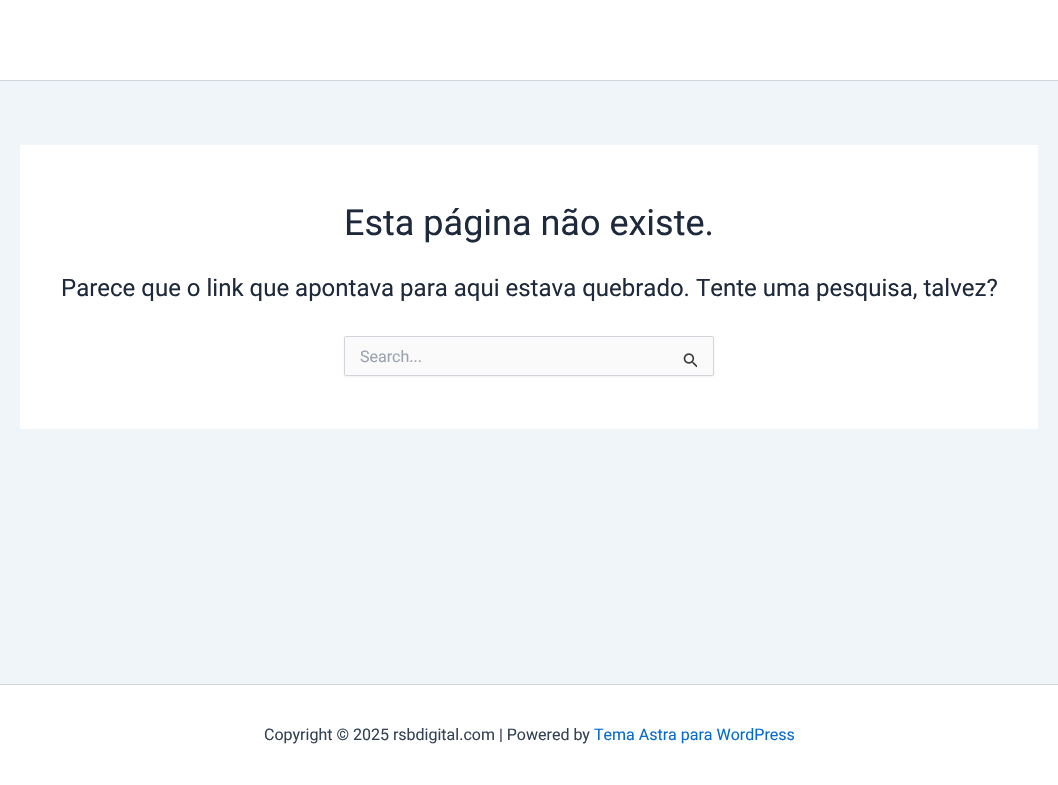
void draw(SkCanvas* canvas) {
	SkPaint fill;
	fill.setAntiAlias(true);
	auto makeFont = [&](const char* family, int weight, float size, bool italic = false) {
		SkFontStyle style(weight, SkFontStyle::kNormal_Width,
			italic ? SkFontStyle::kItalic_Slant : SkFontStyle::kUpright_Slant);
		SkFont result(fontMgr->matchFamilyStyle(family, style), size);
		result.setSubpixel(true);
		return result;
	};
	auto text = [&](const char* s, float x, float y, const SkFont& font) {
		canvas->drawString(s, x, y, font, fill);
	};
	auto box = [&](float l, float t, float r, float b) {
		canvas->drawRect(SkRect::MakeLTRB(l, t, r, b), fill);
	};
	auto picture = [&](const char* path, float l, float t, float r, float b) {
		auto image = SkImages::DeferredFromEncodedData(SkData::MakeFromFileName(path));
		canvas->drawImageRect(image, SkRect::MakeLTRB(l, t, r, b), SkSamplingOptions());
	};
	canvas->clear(0xFFF0F5FA);
	fill.setColor(0xFFFFFFFF);
	box(0, 0, 1058, 80);
	fill.setColor(0xFFD1D5DB);
	box(0, 80, 1058, 81);
	fill.setColor(0xFFFFFFFF);
	box(20, 145, 1038, 429);
	fill.setColor(0x0D000000);
	fill.setMaskFilter(SkMaskFilter::MakeBlur(kNormal_SkBlurStyle, 1));
	canvas->drawRoundRect(SkRect::MakeLTRB(344, 337, 714, 377), 2, 2, fill);
	fill.setMaskFilter(nullptr);
	fill.setColor(0xFFFAFAFA);
	canvas->drawRoundRect(SkRect::MakeLTRB(344.5f, 336.5f, 713.5f, 375.5f), 1.5f, 1.5f, fill);
	fill.setStyle(SkPaint::kStroke_Style);
	fill.setStrokeWidth(1);
	fill.setColor(0xFFD1D5DB);
	canvas->drawRoundRect(SkRect::MakeLTRB(344.5f, 336.5f, 713.5f, 375.5f), 1.5f, 1.5f, fill);
	picture("image0.png", 683, 353, 697, 368);
	fill.setStyle(SkPaint::kFill_Style);
	fill.setColor(0xFFFFFFFF);
	box(0, 685, 1058, 785);
	fill.setColor(0xFFD1D5DB);
	box(0, 684, 1058, 685);
	auto font1 = makeFont("Roboto", 400, 36);
	fill.setColor(0xFF1E293B);
	text("Esta página não existe.", 344, 235, font1);
	auto font2 = makeFont("Roboto", 400, 24);
	text("Parece que o link que apontava para aqui estava quebrado. Tente uma pesquisa, talvez?", 61, 296, font2);
	auto font3 = makeFont("Roboto", 400, 16);
	fill.setColor(0xFF9CA3AF);
	text("Search...", 360, 362, font3);
	fill.setColor(0xFF334155);
	text("Copyright © 2025 rsbdigital.com | Powered by", 264, 740, font3);
	fill.setColor(0xFF046BD2);
	text("Tema Astra para WordPress", 594, 740, font3);
}
